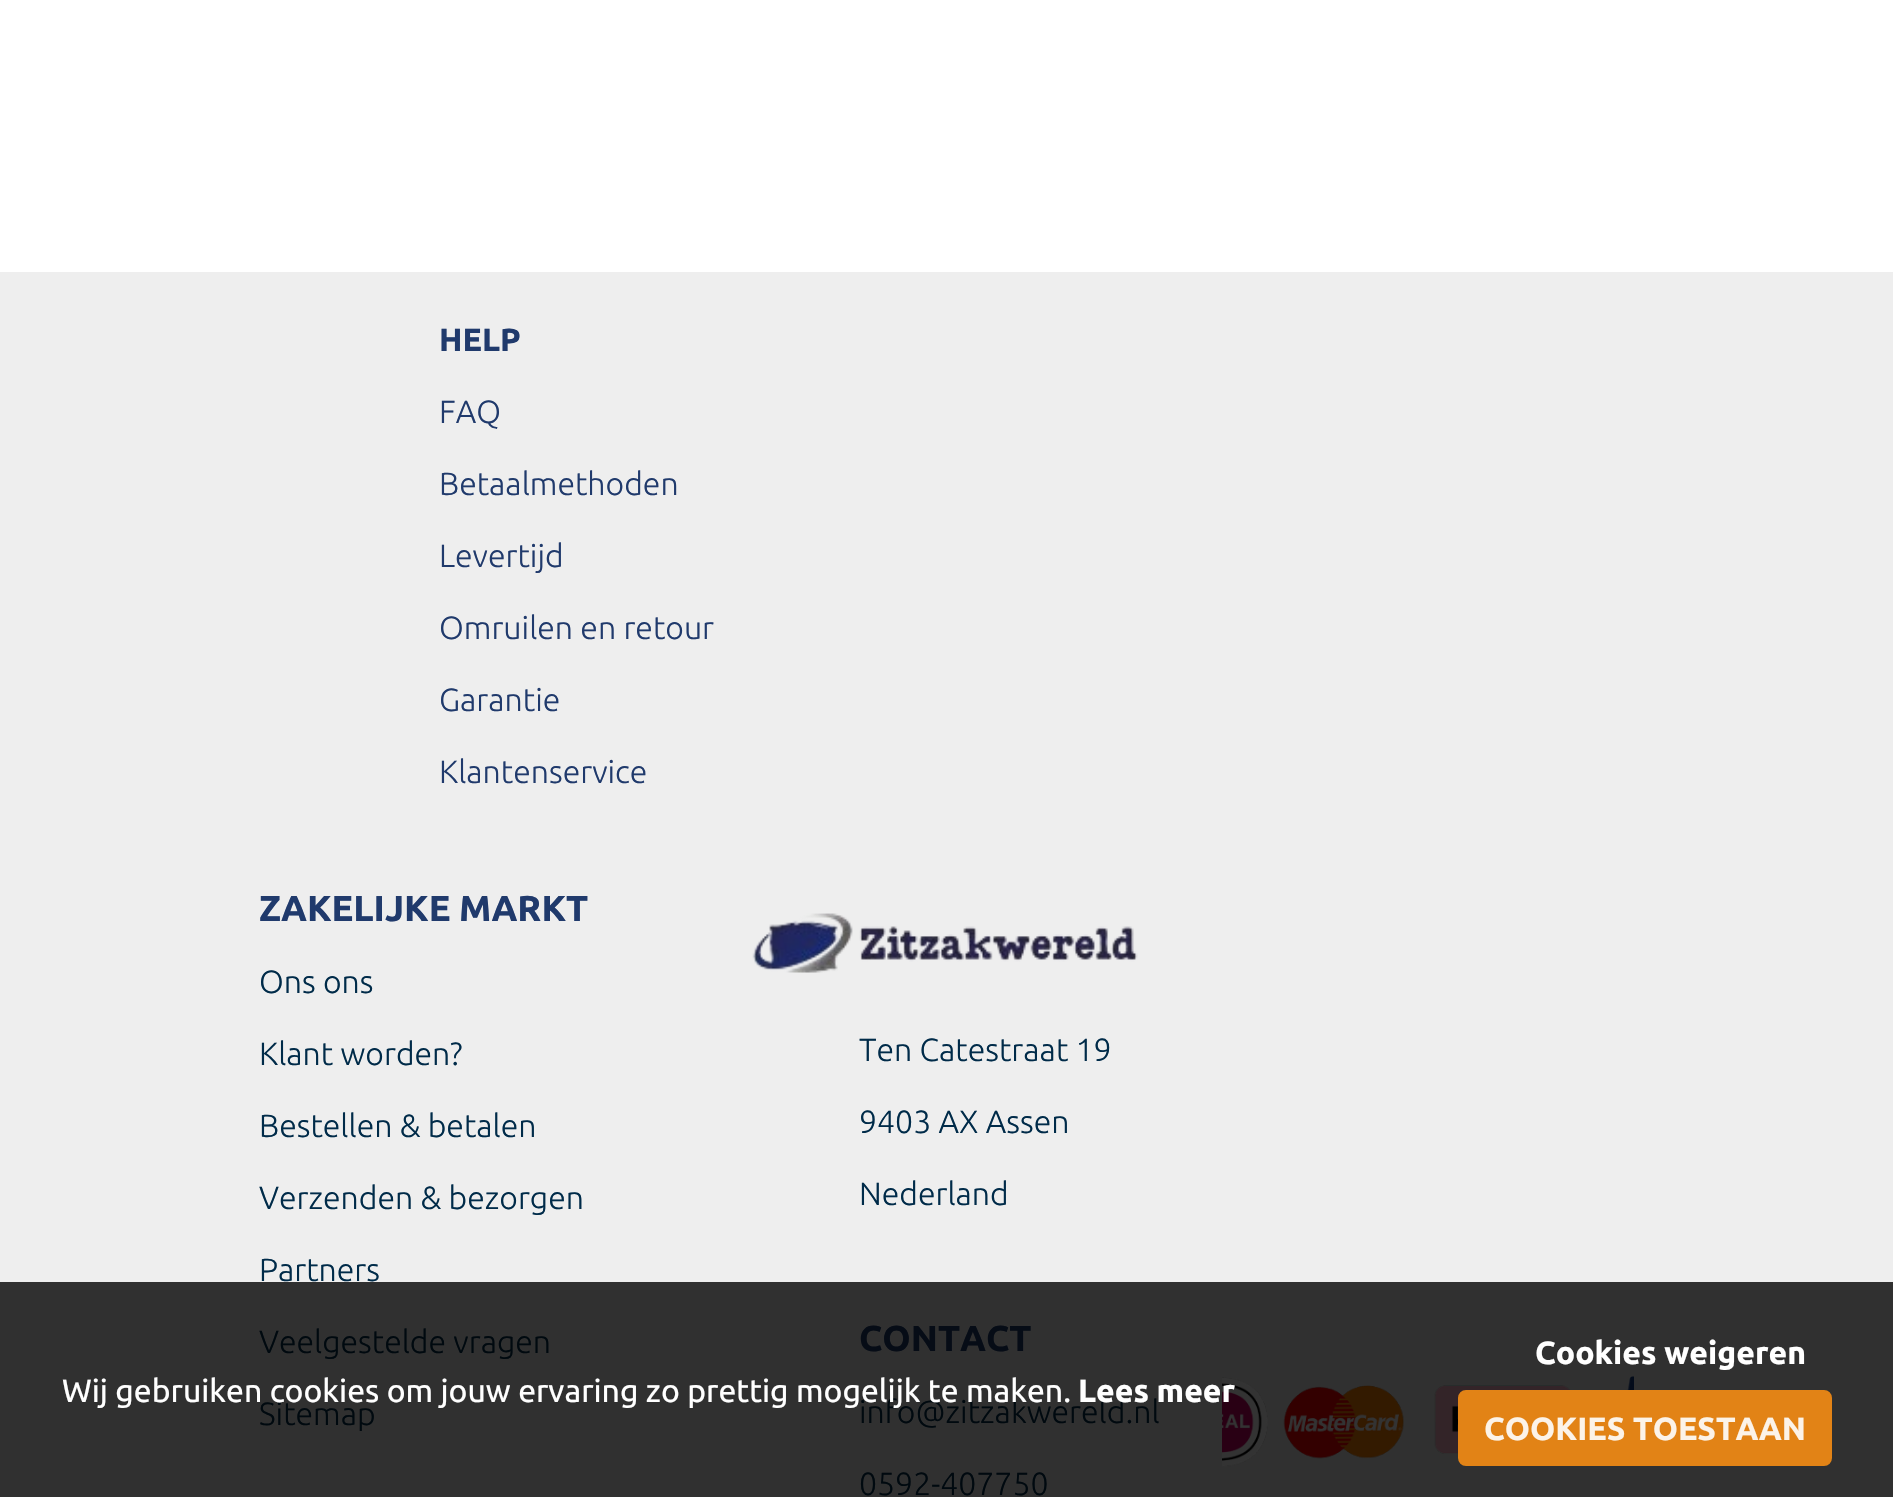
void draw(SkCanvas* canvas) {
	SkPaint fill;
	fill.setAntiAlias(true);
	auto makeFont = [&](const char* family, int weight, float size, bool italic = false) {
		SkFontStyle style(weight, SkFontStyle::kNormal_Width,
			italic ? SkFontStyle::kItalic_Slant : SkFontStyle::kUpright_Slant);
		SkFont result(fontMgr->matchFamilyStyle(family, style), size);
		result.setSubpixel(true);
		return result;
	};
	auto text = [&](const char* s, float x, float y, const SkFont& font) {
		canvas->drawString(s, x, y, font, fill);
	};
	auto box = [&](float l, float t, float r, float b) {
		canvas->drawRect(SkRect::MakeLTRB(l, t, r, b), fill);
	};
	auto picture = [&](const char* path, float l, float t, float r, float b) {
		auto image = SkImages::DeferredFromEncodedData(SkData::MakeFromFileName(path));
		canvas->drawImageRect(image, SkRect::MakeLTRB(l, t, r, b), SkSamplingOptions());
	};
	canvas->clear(0xFFFFFFFF);
	fill.setColor(0xFFEEEEEE);
	box(0, 272, 1893, 1282);
	fill.setColor(0xFF303030);
	box(0, 1282, 1893, 1497);
	picture("image0.png", 752, 913, 1138, 973);
	picture("image1.png", 1222, 1376, 1634, 1467);
	fill.setColor(0xFFE28316);
	canvas->drawRoundRect(SkRect::MakeLTRB(1459, 1391, 1831, 1465), 7, 7, fill);
	fill.setStyle(SkPaint::kStroke_Style);
	fill.setStrokeWidth(2);
	canvas->drawRoundRect(SkRect::MakeLTRB(1459, 1391, 1831, 1465), 7, 7, fill);
	auto font1 = makeFont("Ubuntu", 700, 32);
	fill.setStyle(SkPaint::kFill_Style);
	fill.setColor(0xFF203A6C);
	text("HELP", 439, 351, font1);
	auto font2 = makeFont("Ubuntu", 300, 32);
	text("FAQ", 439, 423, font2);
	text("Betaalmethoden", 439, 495, font2);
	text("Levertijd", 439, 567, font2);
	text("Omruilen en retour", 439, 639, font2);
	text("Garantie", 439, 711, font2);
	text("Klantenservice", 439, 783, font2);
	auto font3 = makeFont("Ubuntu", 700, 36);
	text("ZAKELIJKE MARKT", 259, 921, font3);
	fill.setColor(0xFF002B49);
	text("Ons ons", 259, 993, font2);
	text("Klant worden?", 259, 1065, font2);
	text("Bestellen & betalen", 259, 1137, font2);
	text("Verzenden & bezorgen", 259, 1209, font2);
	text("Partners", 259, 1281, font2);
	fill.setColor(0xFF00090F);
	text("Veelgestelde vragen", 259, 1353, font2);
	text("Sitemap", 259, 1425, font2);
	fill.setColor(0xFF002B49);
	text("Ten Catestraat 19", 859, 1061, font2);
	text("9403 AX Assen", 859, 1133, font2);
	text("Nederland", 859, 1205, font2);
	fill.setColor(0xFF060C16);
	text("CONTACT", 859, 1351, font3);
	fill.setColor(0xFF00090F);
	text("info@zitzakwereld.nl", 859, 1423, font2);
	text("0592-407750", 859, 1495, font2);
	auto font4 = makeFont("Ubuntu", 400, 32);
	fill.setColor(0xFFFFFFFF);
	text("Wij gebruiken cookies om jouw ervaring zo prettig mogelijk te maken.", 62, 1402, font4);
	text("Lees meer", 1078, 1402, font1);
	text("Cookies weigeren", 1535, 1364, font1);
	fill.setColor(0xFFFCF3E8);
	text("COOKIES TOESTAAN", 1484, 1440, font1);
}
